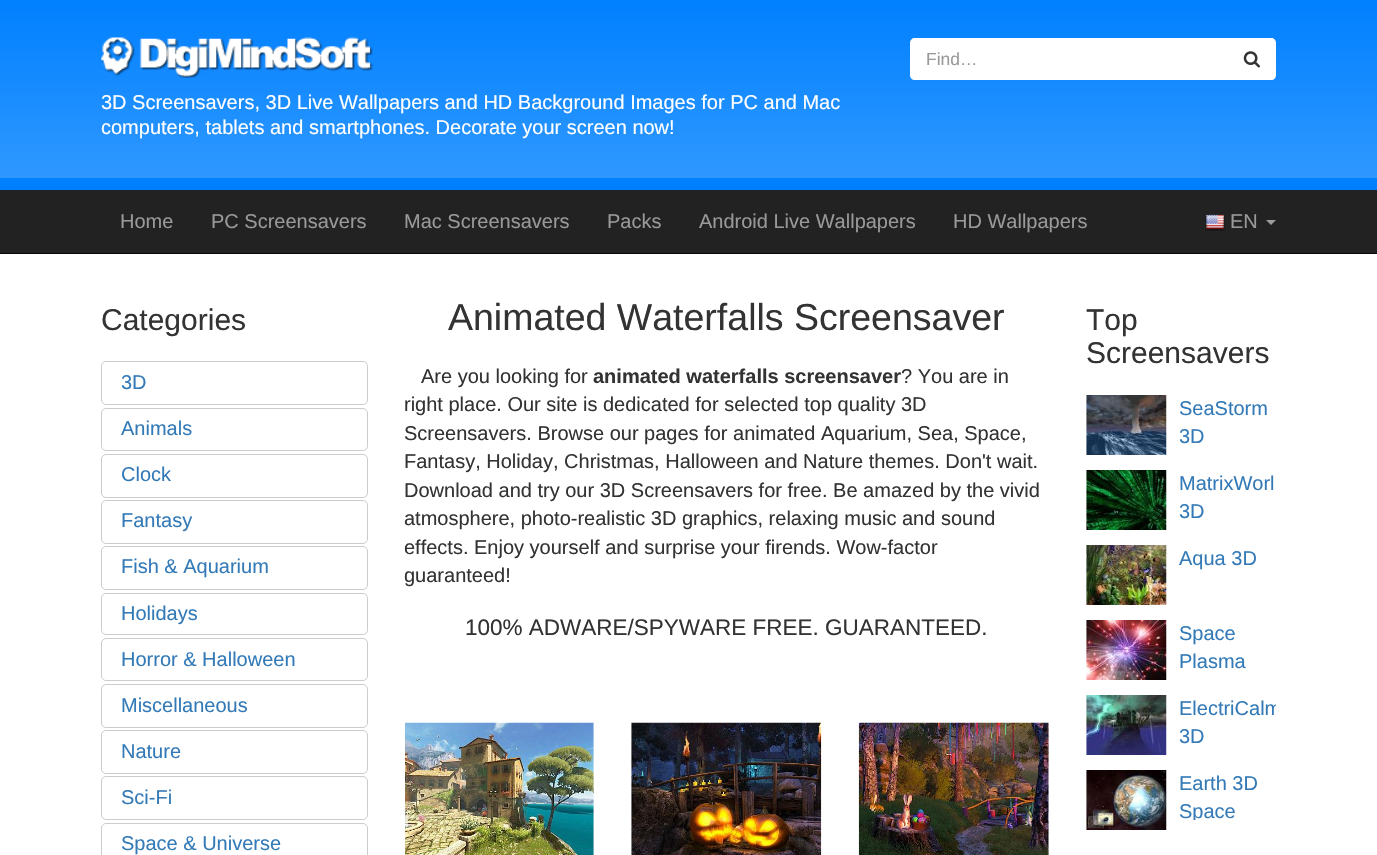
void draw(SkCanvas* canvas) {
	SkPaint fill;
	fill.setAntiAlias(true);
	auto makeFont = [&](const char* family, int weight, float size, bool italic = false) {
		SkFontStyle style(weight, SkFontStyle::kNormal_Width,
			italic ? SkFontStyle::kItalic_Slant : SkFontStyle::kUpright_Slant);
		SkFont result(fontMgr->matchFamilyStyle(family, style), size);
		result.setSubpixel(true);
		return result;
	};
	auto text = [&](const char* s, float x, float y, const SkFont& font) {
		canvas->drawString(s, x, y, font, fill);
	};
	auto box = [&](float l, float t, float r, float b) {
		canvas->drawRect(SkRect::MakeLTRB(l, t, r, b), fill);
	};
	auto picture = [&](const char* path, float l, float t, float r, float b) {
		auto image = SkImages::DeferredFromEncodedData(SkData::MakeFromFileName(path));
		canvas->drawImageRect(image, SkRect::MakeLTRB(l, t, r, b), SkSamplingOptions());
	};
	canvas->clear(0xFFFFFFFF);
	fill.setColor(0xFF0080FF);
	box(0, 178, 1377, 190);
	{
		const SkColor colors[] = {0xFF0080FF, 0xFF2F98FF};
		const float stops[] = {0, 1};
		const SkPoint ends[] = {{689, 0}, {689, 178}};
		fill.setShader(SkGradientShader::MakeLinear(ends, colors, stops, 2, SkTileMode::kClamp));
		fill.setAlpha(255);
	}
	box(0, 0, 1377, 178);
	fill.setShader(nullptr);
	fill.setColor(0xFFFFFFFF);
	canvas->drawPath(SkPathBuilder().moveTo(915, 38).lineTo(1229, 38).lineTo(1229, 80).lineTo(915, 80).cubicTo(912, 80, 910, 78, 910, 75).lineTo(910, 43).cubicTo(910, 40, 912, 38, 915, 38).close().detach(), fill);
	canvas->drawPath(SkPathBuilder().moveTo(1228, 38).lineTo(1271, 38).cubicTo(1274, 38, 1276, 40, 1276, 43).lineTo(1276, 75).cubicTo(1276, 78, 1274, 80, 1271, 80).lineTo(1228, 80).close().detach(), fill);
	picture("image0.png", 1243, 51, 1260, 68);
	picture("image1.png", 101, 37, 373, 78);
	fill.setColor(0xFF222222);
	box(0, 190, 1377, 253);
	fill.setColor(0xFF080808);
	box(0, 253, 1377, 254);
	picture("image2.png", 1205, 214, 1225, 231);
	fill.setColor(0xFF9D9D9D);
	canvas->drawPath(SkPathBuilder().moveTo(1266, 220).lineTo(1276, 220).lineTo(1271, 225).close().detach(), fill);
	fill.setStyle(SkPaint::kStroke_Style);
	fill.setStrokeWidth(1);
	fill.setColor(0xFFCCCCCC);
	canvas->drawRoundRect(SkRect::MakeLTRB(101.5f, 361.5f, 367.5f, 404.5f), 4.5f, 4.5f, fill);
	canvas->drawRoundRect(SkRect::MakeLTRB(101.5f, 408.5f, 367.5f, 450.5f), 4.5f, 4.5f, fill);
	canvas->drawRoundRect(SkRect::MakeLTRB(101.5f, 454.5f, 367.5f, 497.5f), 4.5f, 4.5f, fill);
	canvas->drawRoundRect(SkRect::MakeLTRB(101.5f, 500.5f, 367.5f, 543.5f), 4.5f, 4.5f, fill);
	canvas->drawRoundRect(SkRect::MakeLTRB(101.5f, 546.5f, 367.5f, 589.5f), 4.5f, 4.5f, fill);
	canvas->drawRoundRect(SkRect::MakeLTRB(101.5f, 593.5f, 367.5f, 634.5f), 4.5f, 4.5f, fill);
	canvas->drawRoundRect(SkRect::MakeLTRB(101.5f, 638.5f, 367.5f, 680.5f), 4.5f, 4.5f, fill);
	canvas->drawRoundRect(SkRect::MakeLTRB(101.5f, 684.5f, 367.5f, 727.5f), 4.5f, 4.5f, fill);
	canvas->drawRoundRect(SkRect::MakeLTRB(101.5f, 730.5f, 367.5f, 773.5f), 4.5f, 4.5f, fill);
	canvas->drawRoundRect(SkRect::MakeLTRB(101.5f, 776.5f, 367.5f, 819.5f), 4.5f, 4.5f, fill);
	canvas->drawRoundRect(SkRect::MakeLTRB(101.5f, 823.5f, 367.5f, 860.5f), 4.5f, 4.5f, fill);
	picture("image3.png", 405, 722, 594, 855);
	picture("image4.png", 631, 722, 822, 855);
	picture("image5.png", 858, 722, 1049, 855);
	picture("image6.png", 1086, 395, 1167, 455);
	picture("image7.png", 1086, 470, 1167, 530);
	picture("image8.png", 1086, 545, 1167, 605);
	picture("image9.png", 1086, 620, 1167, 680);
	picture("image10.png", 1086, 695, 1167, 755);
	picture("image11.png", 1086, 770, 1167, 830);
	auto font1 = makeFont("Liberation Sans", 400, 17.5f);
	fill.setStyle(SkPaint::kFill_Style);
	fill.setColor(0xFF999999);
	text("Find…", 926, 65, font1);
	auto font2 = makeFont("Liberation Sans", 400, 20);
	fill.setColor(0xFFFFFFFF);
	text("3D Screensavers, 3D Live Wallpapers and HD Background Images for PC and Mac", 101, 109, font2);
	text("computers, tablets and smartphones. Decorate your screen now!", 101, 134, font2);
	fill.setColor(0xFF999999);
	text("Home", 120, 228, font2);
	text("PC Screensavers", 211, 228, font2);
	text("Mac Screensavers", 404, 228, font2);
	text("Packs", 607, 228, font2);
	text("Android Live Wallpapers", 699, 228, font2);
	text("HD Wallpapers", 953, 228, font2);
	text("EN", 1230, 228, font2);
	auto font3 = makeFont("Liberation Sans", 400, 30);
	fill.setColor(0xFF333333);
	text("Categories", 101, 330, font3);
	fill.setColor(0xFF337AB7);
	text("3D", 121, 389, font2);
	text("Animals", 121, 435, font2);
	text("Clock", 121, 481, font2);
	text("Fantasy", 121, 527, font2);
	text("Fish & Aquarium", 121, 573, font2);
	text("Holidays", 121, 620, font2);
	text("Horror & Halloween", 121, 666, font2);
	text("Miscellaneous", 121, 712, font2);
	text("Nature", 121, 758, font2);
	text("Sci-Fi", 121, 804, font2);
	text("Space & Universe", 121, 850, font2);
	auto font4 = makeFont("Liberation Sans", 400, 37.5f);
	fill.setColor(0xFF333333);
	text("Animated Waterfalls Screensaver", 448, 330, font4);
	text("Are you looking for", 421, 383, font2);
	auto font5 = makeFont("Liberation Sans", 700, 20);
	text("animated waterfalls screensaver", 593, 383, font5);
	text("? You are in", 901, 383, font2);
	text("right place. Our site is dedicated for selected top quality 3D", 404, 411, font2);
	text("Screensavers. Browse our pages for animated Aquarium, Sea, Space,", 404, 440, font2);
	text("Fantasy, Holiday, Christmas, Halloween and Nature themes. Don't wait.", 404, 468, font2);
	text("Download and try our 3D Screensavers for free. Be amazed by the vivid", 404, 497, font2);
	text("atmosphere, photo-realistic 3D graphics, relaxing music and sound", 404, 525, font2);
	text("effects. Enjoy yourself and surprise your firends. Wow-factor", 404, 554, font2);
	text("guaranteed!", 404, 582, font2);
	auto font6 = makeFont("Liberation Sans", 400, 22.5f);
	text("100% ADWARE/SPYWARE FREE. GUARANTEED.", 465, 635, font6);
	text("Top", 1086, 330, font3);
	text("Screensavers", 1086, 363, font3);
	fill.setColor(0xFF337AB7);
	text("SeaStorm", 1179, 415, font2);
	text("3D", 1179, 443, font2);
	text("MatrixWorl", 1179, 490, font2);
	text("3D", 1179, 518, font2);
	text("Aqua 3D", 1179, 565, font2);
	text("Space", 1179, 640, font2);
	text("Plasma", 1179, 668, font2);
	canvas->save();
	canvas->clipRect(SkRect::MakeLTRB(1179, 695, 1276, 745));
	text("ElectriCalm", 1179, 715, font2);
	canvas->restore();
	text("3D", 1179, 743, font2);
	text("Earth 3D", 1179, 790, font2);
	canvas->save();
	canvas->clipRect(SkRect::MakeLTRB(1179, 770, 1276, 820));
	text("Space", 1179, 818, font2);
	canvas->restore();
}
